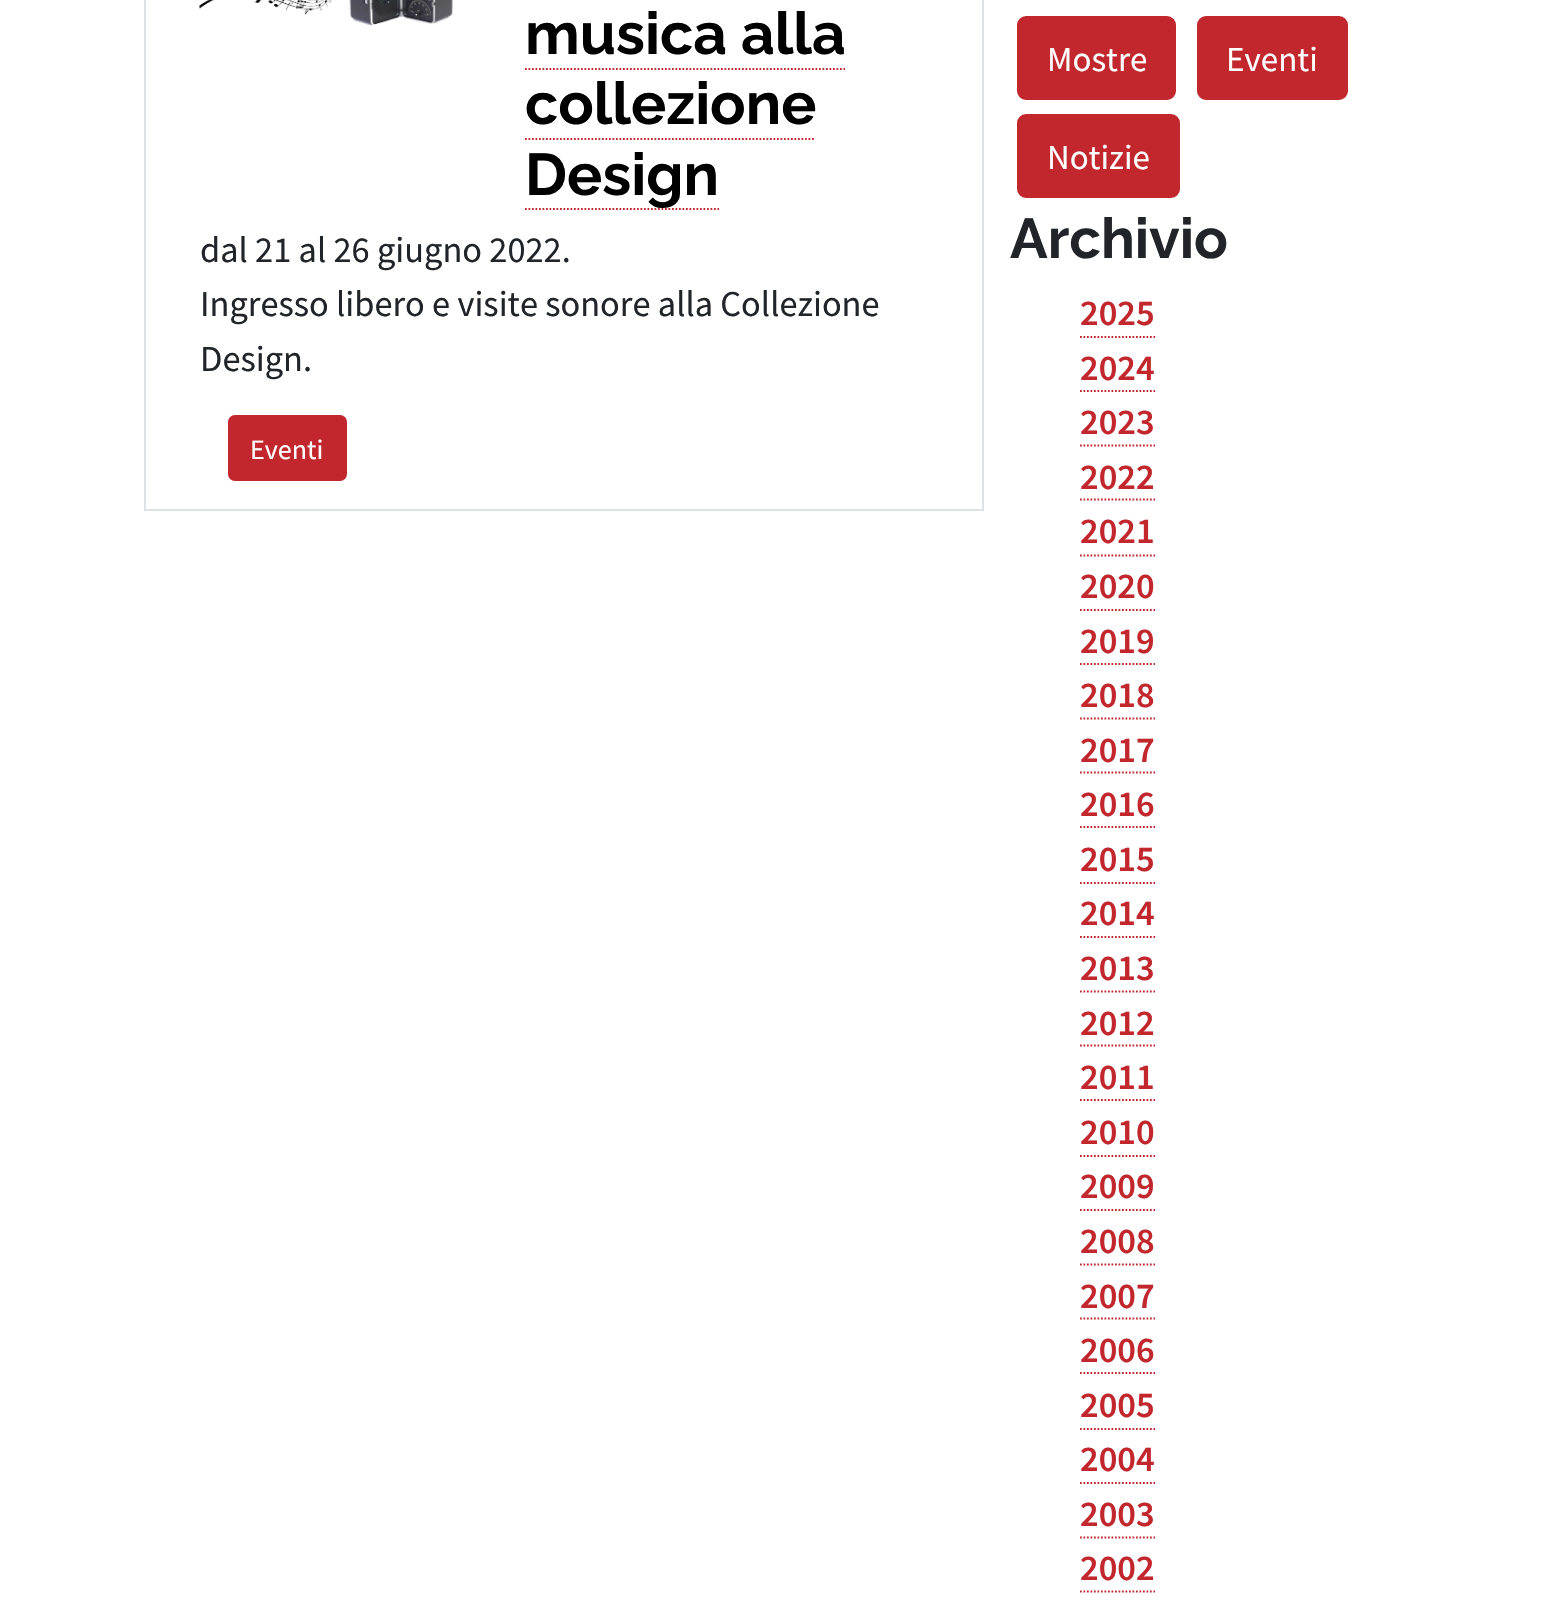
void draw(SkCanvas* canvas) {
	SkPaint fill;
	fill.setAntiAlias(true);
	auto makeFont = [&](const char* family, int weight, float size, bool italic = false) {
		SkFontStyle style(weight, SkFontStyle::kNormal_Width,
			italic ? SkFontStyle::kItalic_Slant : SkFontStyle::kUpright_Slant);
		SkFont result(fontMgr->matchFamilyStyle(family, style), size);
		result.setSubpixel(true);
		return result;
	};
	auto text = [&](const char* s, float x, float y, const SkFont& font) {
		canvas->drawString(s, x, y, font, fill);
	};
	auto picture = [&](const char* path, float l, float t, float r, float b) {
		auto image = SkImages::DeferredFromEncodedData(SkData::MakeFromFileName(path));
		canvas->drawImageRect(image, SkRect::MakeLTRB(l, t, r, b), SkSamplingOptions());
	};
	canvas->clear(0xFFFFFFFF);
	fill.setStyle(SkPaint::kStroke_Style);
	fill.setStrokeWidth(2);
	fill.setColor(0xFFDEE2E6);
	canvas->drawRect(SkRect::MakeLTRB(145, -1, 983, 510), fill);
	picture("image0.png", 199, 0, 453, 26);
	fill.setStrokeWidth(1.8f);
	fill.setColor(0xFFC1272D);
	fill.setPathEffect(SkDashPathEffect::Make({{1.75f, 1.75f}}, 0));
	canvas->drawPath(SkPathBuilder().moveTo(525, 69).lineTo(845, 69).detach(), fill);
	fill.setPathEffect(nullptr);
	fill.setPathEffect(SkDashPathEffect::Make({{1.75f, 1.75f}}, 0));
	canvas->drawPath(SkPathBuilder().moveTo(525, 139).lineTo(815.5f, 139).detach(), fill);
	fill.setPathEffect(nullptr);
	fill.setPathEffect(SkDashPathEffect::Make({{1.75f, 1.75f}}, 0));
	canvas->drawPath(SkPathBuilder().moveTo(525, 209).lineTo(719, 209).detach(), fill);
	fill.setPathEffect(nullptr);
	fill.setStyle(SkPaint::kFill_Style);
	canvas->drawRoundRect(SkRect::MakeLTRB(229, 416, 346, 480), 6, 6, fill);
	fill.setStyle(SkPaint::kStroke_Style);
	fill.setStrokeWidth(2);
	canvas->drawRoundRect(SkRect::MakeLTRB(229, 416, 346, 480), 6, 6, fill);
	fill.setStyle(SkPaint::kFill_Style);
	canvas->drawRoundRect(SkRect::MakeLTRB(1018, 17, 1175, 99), 8, 8, fill);
	fill.setStyle(SkPaint::kStroke_Style);
	canvas->drawRoundRect(SkRect::MakeLTRB(1018, 17, 1175, 99), 8, 8, fill);
	fill.setStyle(SkPaint::kFill_Style);
	canvas->drawRoundRect(SkRect::MakeLTRB(1198, 17, 1347, 99), 8, 8, fill);
	fill.setStyle(SkPaint::kStroke_Style);
	canvas->drawRoundRect(SkRect::MakeLTRB(1198, 17, 1347, 99), 8, 8, fill);
	fill.setStyle(SkPaint::kFill_Style);
	canvas->drawRoundRect(SkRect::MakeLTRB(1018, 115, 1179, 197), 8, 8, fill);
	fill.setStyle(SkPaint::kStroke_Style);
	canvas->drawRoundRect(SkRect::MakeLTRB(1018, 115, 1179, 197), 8, 8, fill);
	fill.setStrokeWidth(1.8f);
	fill.setPathEffect(SkDashPathEffect::Make({{1.75f, 1.75f}}, 0));
	canvas->drawPath(SkPathBuilder().moveTo(1080, 337).lineTo(1155, 337).detach(), fill);
	fill.setPathEffect(nullptr);
	fill.setPathEffect(SkDashPathEffect::Make({{1.75f, 1.75f}}, 0));
	canvas->drawPath(SkPathBuilder().moveTo(1080, 391).lineTo(1155, 391).detach(), fill);
	fill.setPathEffect(nullptr);
	fill.setPathEffect(SkDashPathEffect::Make({{1.75f, 1.75f}}, 0));
	canvas->drawPath(SkPathBuilder().moveTo(1080, 445.5f).lineTo(1155, 445.5f).detach(), fill);
	fill.setPathEffect(nullptr);
	fill.setPathEffect(SkDashPathEffect::Make({{1.75f, 1.75f}}, 0));
	canvas->drawPath(SkPathBuilder().moveTo(1080, 499.5f).lineTo(1155, 499.5f).detach(), fill);
	fill.setPathEffect(nullptr);
	fill.setPathEffect(SkDashPathEffect::Make({{1.75f, 1.75f}}, 0));
	canvas->drawPath(SkPathBuilder().moveTo(1080, 555.5f).lineTo(1155, 555.5f).detach(), fill);
	fill.setPathEffect(nullptr);
	fill.setPathEffect(SkDashPathEffect::Make({{1.75f, 1.75f}}, 0));
	canvas->drawPath(SkPathBuilder().moveTo(1080, 610).lineTo(1155, 610).detach(), fill);
	fill.setPathEffect(nullptr);
	fill.setPathEffect(SkDashPathEffect::Make({{1.75f, 1.75f}}, 0));
	canvas->drawPath(SkPathBuilder().moveTo(1080, 664).lineTo(1155, 664).detach(), fill);
	fill.setPathEffect(nullptr);
	fill.setPathEffect(SkDashPathEffect::Make({{1.75f, 1.75f}}, 0));
	canvas->drawPath(SkPathBuilder().moveTo(1080, 718.5f).lineTo(1155, 718.5f).detach(), fill);
	fill.setPathEffect(nullptr);
	fill.setPathEffect(SkDashPathEffect::Make({{1.75f, 1.75f}}, 0));
	canvas->drawPath(SkPathBuilder().moveTo(1080, 772.5f).lineTo(1155, 772.5f).detach(), fill);
	fill.setPathEffect(nullptr);
	fill.setPathEffect(SkDashPathEffect::Make({{1.75f, 1.75f}}, 0));
	canvas->drawPath(SkPathBuilder().moveTo(1080, 827).lineTo(1155, 827).detach(), fill);
	fill.setPathEffect(nullptr);
	fill.setPathEffect(SkDashPathEffect::Make({{1.75f, 1.75f}}, 0));
	canvas->drawPath(SkPathBuilder().moveTo(1080, 883).lineTo(1155, 883).detach(), fill);
	fill.setPathEffect(nullptr);
	fill.setPathEffect(SkDashPathEffect::Make({{1.75f, 1.75f}}, 0));
	canvas->drawPath(SkPathBuilder().moveTo(1080, 937).lineTo(1155, 937).detach(), fill);
	fill.setPathEffect(nullptr);
	fill.setPathEffect(SkDashPathEffect::Make({{1.75f, 1.75f}}, 0));
	canvas->drawPath(SkPathBuilder().moveTo(1080, 991.5f).lineTo(1155, 991.5f).detach(), fill);
	fill.setPathEffect(nullptr);
	fill.setPathEffect(SkDashPathEffect::Make({{1.75f, 1.75f}}, 0));
	canvas->drawPath(SkPathBuilder().moveTo(1080, 1045.5f).lineTo(1155, 1045.5f).detach(), fill);
	fill.setPathEffect(nullptr);
	fill.setPathEffect(SkDashPathEffect::Make({{1.75f, 1.75f}}, 0));
	canvas->drawPath(SkPathBuilder().moveTo(1080, 1100).lineTo(1155, 1100).detach(), fill);
	fill.setPathEffect(nullptr);
	fill.setPathEffect(SkDashPathEffect::Make({{1.75f, 1.75f}}, 0));
	canvas->drawPath(SkPathBuilder().moveTo(1080, 1156).lineTo(1155, 1156).detach(), fill);
	fill.setPathEffect(nullptr);
	fill.setPathEffect(SkDashPathEffect::Make({{1.75f, 1.75f}}, 0));
	canvas->drawPath(SkPathBuilder().moveTo(1080, 1210).lineTo(1155, 1210).detach(), fill);
	fill.setPathEffect(nullptr);
	fill.setPathEffect(SkDashPathEffect::Make({{1.75f, 1.75f}}, 0));
	canvas->drawPath(SkPathBuilder().moveTo(1080, 1264.5f).lineTo(1155, 1264.5f).detach(), fill);
	fill.setPathEffect(nullptr);
	fill.setPathEffect(SkDashPathEffect::Make({{1.75f, 1.75f}}, 0));
	canvas->drawPath(SkPathBuilder().moveTo(1080, 1318.5f).lineTo(1155, 1318.5f).detach(), fill);
	fill.setPathEffect(nullptr);
	fill.setPathEffect(SkDashPathEffect::Make({{1.75f, 1.75f}}, 0));
	canvas->drawPath(SkPathBuilder().moveTo(1080, 1373).lineTo(1155, 1373).detach(), fill);
	fill.setPathEffect(nullptr);
	fill.setPathEffect(SkDashPathEffect::Make({{1.75f, 1.75f}}, 0));
	canvas->drawPath(SkPathBuilder().moveTo(1080, 1429).lineTo(1155, 1429).detach(), fill);
	fill.setPathEffect(nullptr);
	fill.setPathEffect(SkDashPathEffect::Make({{1.75f, 1.75f}}, 0));
	canvas->drawPath(SkPathBuilder().moveTo(1080, 1483).lineTo(1155, 1483).detach(), fill);
	fill.setPathEffect(nullptr);
	fill.setPathEffect(SkDashPathEffect::Make({{1.75f, 1.75f}}, 0));
	canvas->drawPath(SkPathBuilder().moveTo(1080, 1537.5f).lineTo(1155, 1537.5f).detach(), fill);
	fill.setPathEffect(nullptr);
	fill.setPathEffect(SkDashPathEffect::Make({{1.75f, 1.75f}}, 0));
	canvas->drawPath(SkPathBuilder().moveTo(1080, 1591.5f).lineTo(1155, 1591.5f).detach(), fill);
	fill.setPathEffect(nullptr);
	auto font1 = makeFont("Raleway", 700, 58.75f);
	fill.setStyle(SkPaint::kFill_Style);
	fill.setColor(0xFF000000);
	text("musica alla", 525, 54, font1);
	text("collezione", 525, 124, font1);
	text("Design", 525, 195, font1);
	auto font2 = makeFont("Source Sans Pro", 400, 36.4f);
	fill.setColor(0xFF212529);
	text("dal 21 al 26 giugno 2022.", 200, 262, font2);
	text("Ingresso libero e visite sonore alla Collezione", 200, 316, font2);
	text("Design.", 200, 371, font2);
	auto font3 = makeFont("Source Sans Pro", 400, 28);
	fill.setColor(0xFFFFFFFF);
	text("Eventi", 250, 459, font3);
	auto font4 = makeFont("Source Sans Pro", 400, 35);
	text("Mostre", 1047, 71, font4);
	text("Eventi", 1226, 71, font4);
	text("Notizie", 1047, 169, font4);
	auto font5 = makeFont("Raleway", 700, 56);
	fill.setColor(0xFF212529);
	text("Archivio", 1010, 258, font5);
	auto font6 = makeFont("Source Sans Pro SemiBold", 600, 36.4f);
	fill.setColor(0xFFC1272D);
	text("2025", 1080, 325, font6);
	text("2024", 1080, 380, font6);
	text("2023", 1080, 434, font6);
	text("2022", 1080, 489, font6);
	text("2021", 1080, 543, font6);
	text("2020", 1080, 598, font6);
	text("2019", 1080, 653, font6);
	text("2018", 1080, 707, font6);
	text("2017", 1080, 762, font6);
	text("2016", 1080, 816, font6);
	text("2015", 1080, 871, font6);
	text("2014", 1080, 925, font6);
	text("2013", 1080, 980, font6);
	text("2012", 1080, 1035, font6);
	text("2011", 1080, 1089, font6);
	text("2010", 1080, 1144, font6);
	text("2009", 1080, 1198, font6);
	text("2008", 1080, 1253, font6);
	text("2007", 1080, 1308, font6);
	text("2006", 1080, 1362, font6);
	text("2005", 1080, 1417, font6);
	text("2004", 1080, 1471, font6);
	text("2003", 1080, 1526, font6);
	text("2002", 1080, 1580, font6);
}
